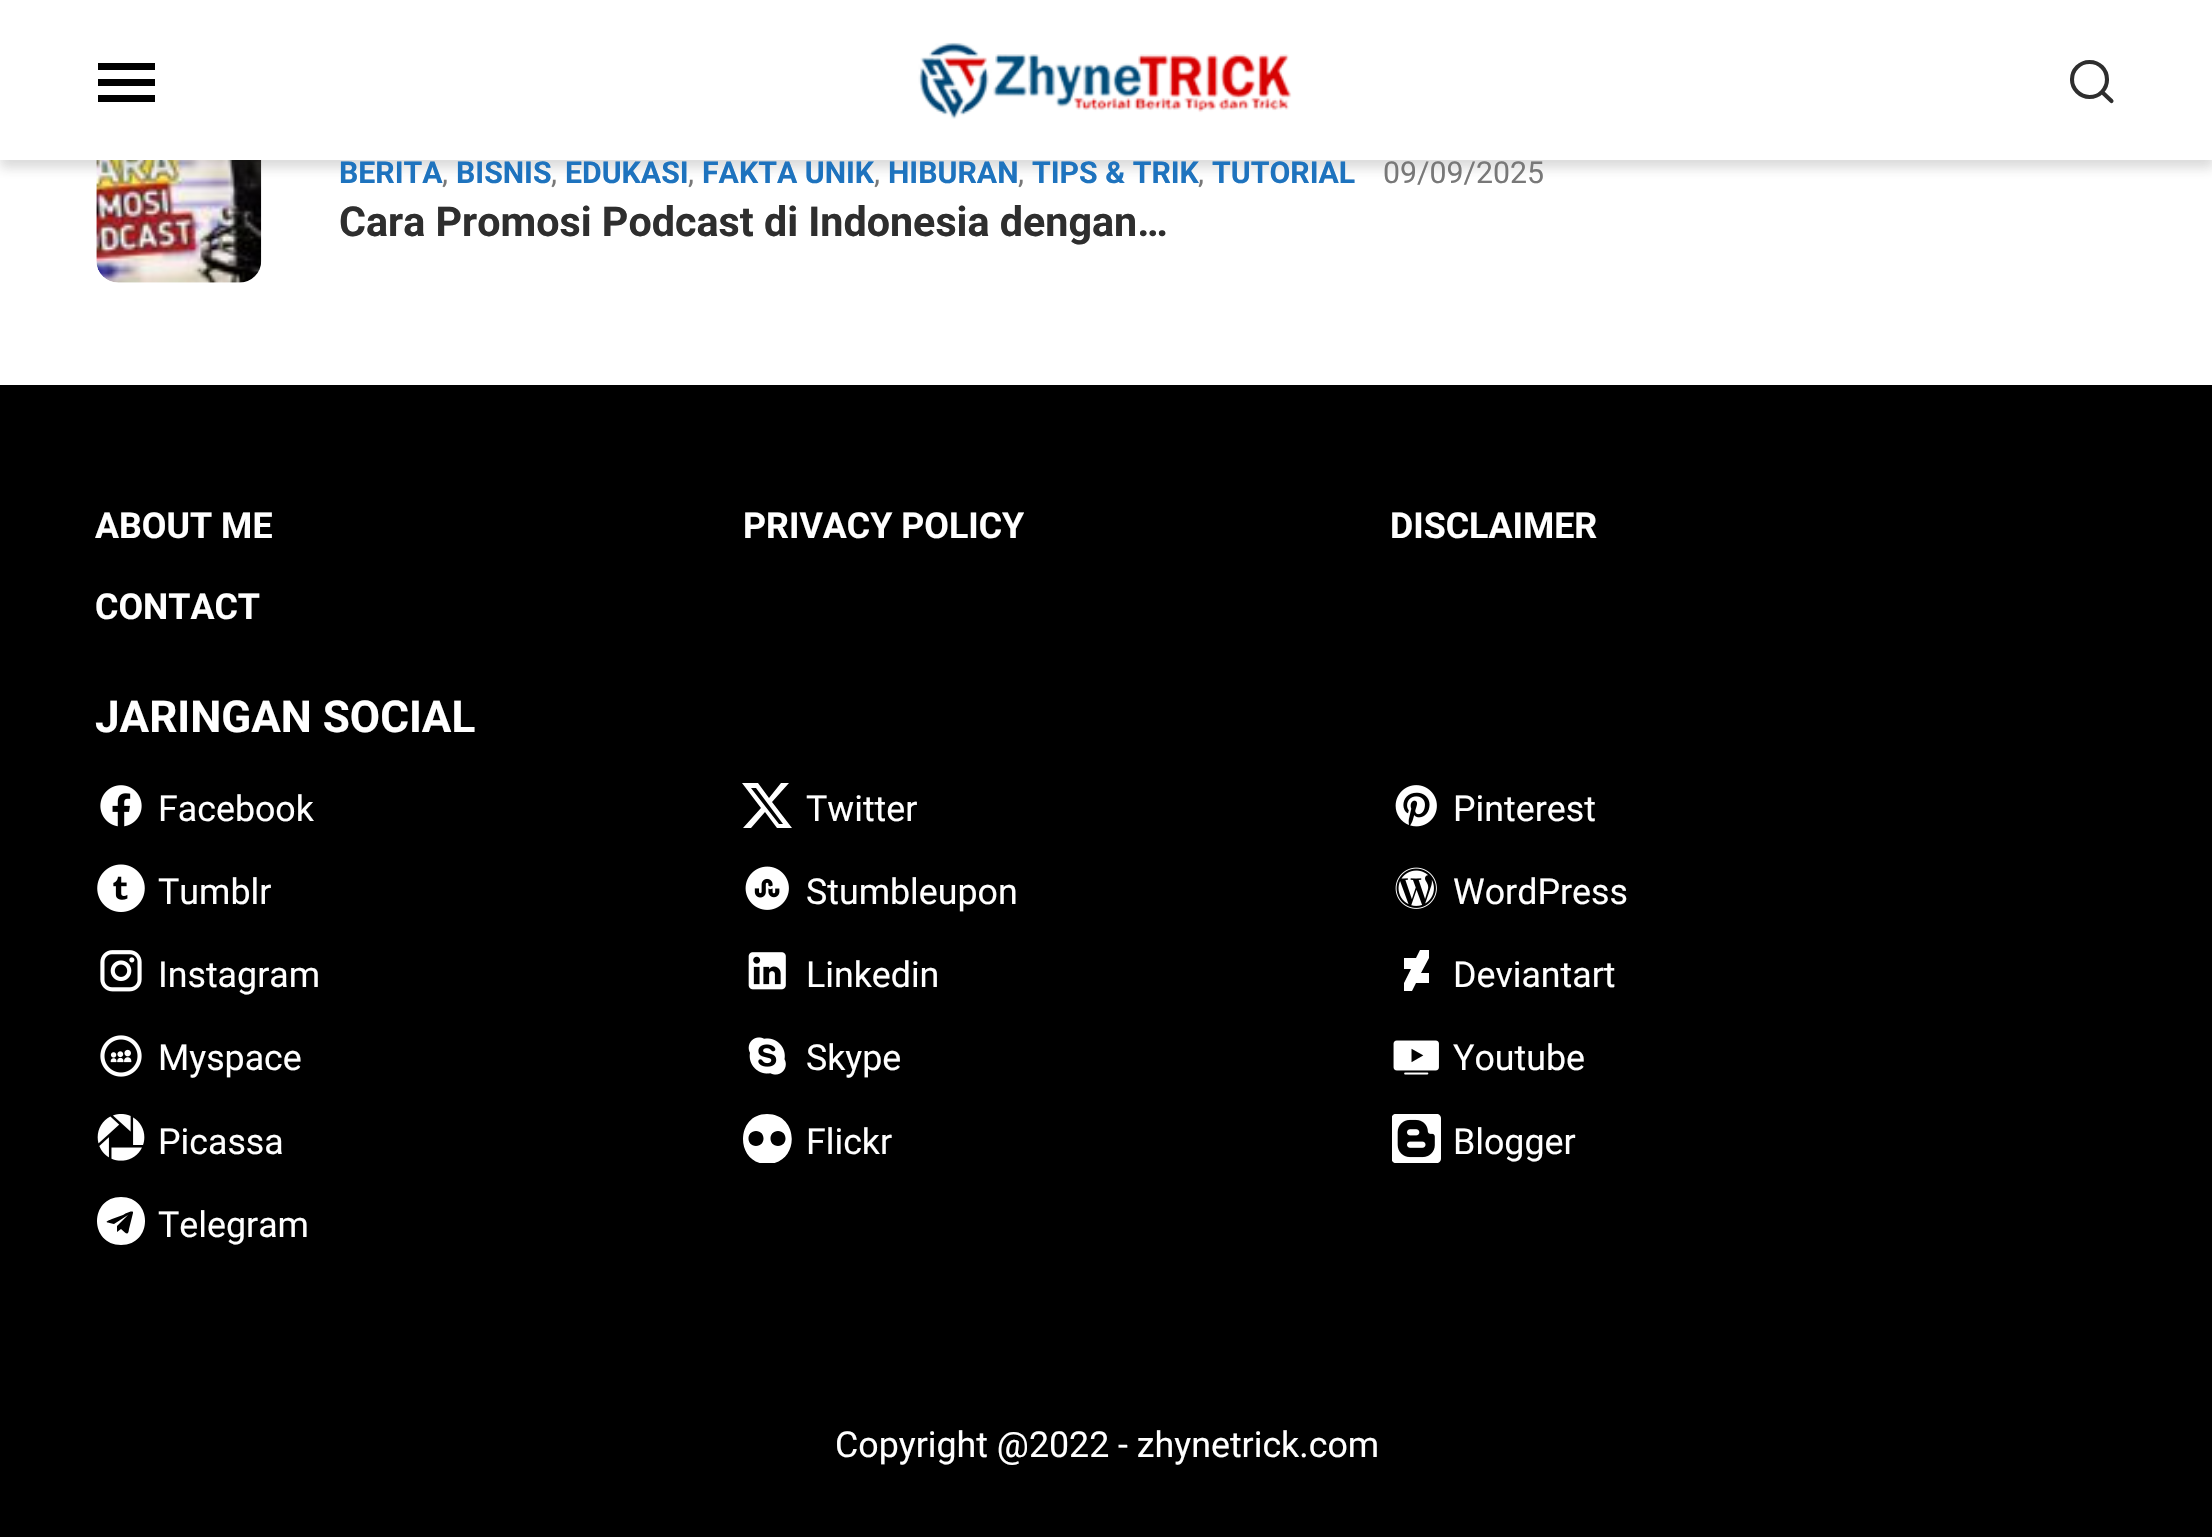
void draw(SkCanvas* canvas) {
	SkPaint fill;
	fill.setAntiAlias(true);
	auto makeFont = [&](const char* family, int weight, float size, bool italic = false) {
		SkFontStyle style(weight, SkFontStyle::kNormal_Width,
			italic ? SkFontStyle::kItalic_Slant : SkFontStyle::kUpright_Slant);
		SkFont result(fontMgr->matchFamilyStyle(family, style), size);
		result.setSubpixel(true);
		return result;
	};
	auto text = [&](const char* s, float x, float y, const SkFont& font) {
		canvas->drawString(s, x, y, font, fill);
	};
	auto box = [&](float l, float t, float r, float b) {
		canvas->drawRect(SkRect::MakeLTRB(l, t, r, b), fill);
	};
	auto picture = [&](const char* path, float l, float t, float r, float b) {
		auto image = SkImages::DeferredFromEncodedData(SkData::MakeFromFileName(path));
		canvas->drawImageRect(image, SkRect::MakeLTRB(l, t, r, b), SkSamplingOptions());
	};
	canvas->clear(0xFF000000);
	fill.setColor(0xFFFFFFFF);
	box(0, 160, 2212, 385);
	picture("image1.png", 96, 160, 262, 283);
	fill.setColor(0x2E343434);
	fill.setMaskFilter(SkMaskFilter::MakeBlur(kNormal_SkBlurStyle, 5.5f));
	canvas->drawRect(SkRect::MakeLTRB(0, 8, 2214, 168), fill);
	fill.setMaskFilter(nullptr);
	fill.setColor(0xFFFFFFFF);
	box(0, 0, 2212, 160);
	fill.setColor(0xFF000000);
	canvas->drawPath(SkPathBuilder().moveTo(98, 63).lineTo(155, 63).lineTo(155, 70).lineTo(98, 70).lineTo(98, 63).moveTo(98, 79).lineTo(155, 79).lineTo(155, 86).lineTo(98, 86).lineTo(98, 79).moveTo(98, 95).lineTo(155, 95).lineTo(155, 102).lineTo(98, 102).close().detach(), fill);
	picture("image0.png", 918, 42, 1292, 119);
	fill.setStyle(SkPaint::kStroke_Style);
	fill.setStrokeWidth(4.1f);
	fill.setStrokeCap(SkPaint::kRound_Cap);
	fill.setColor(0xFF2E2E2E);
	canvas->drawPath(SkPathBuilder().moveTo(2111.5f, 101).lineTo(2102, 92).moveTo(2107, 79.5f).cubicTo(2107, 89, 2099.5f, 97, 2089.5f, 97).cubicTo(2080, 97, 2072, 89, 2072, 79.5f).cubicTo(2072, 69.5f, 2080, 62, 2089.5f, 62).cubicTo(2099.5f, 62, 2107, 69.5f, 2107, 79.5f).close().detach(), fill);
	picture("image2.png", 100, 785, 142, 827);
	fill.setStyle(SkPaint::kFill_Style);
	fill.setColor(0xFFFFFFFF);
	canvas->drawPath(SkPathBuilder().moveTo(781, 783).lineTo(789, 783).lineTo(772, 802).lineTo(792, 828).lineTo(777, 828).lineTo(765, 812).lineTo(751, 828).lineTo(743, 828).lineTo(761, 808).lineTo(742, 783).lineTo(758, 783).lineTo(769, 798).close().moveTo(779, 824).lineTo(783, 824).lineTo(756, 788).lineTo(751, 788).close().detach(), fill);
	picture("image3.png", 1395, 785, 1437, 827);
	picture("image4.png", 97, 864, 145, 912);
	picture("image5.png", 745, 866, 789, 910);
	picture("image6.png", 1395, 867, 1437, 909);
	picture("image7.png", 100, 950, 142, 992);
	picture("image8.png", 748, 952, 786, 990);
	canvas->drawPath(SkPathBuilder().moveTo(1404, 958).lineTo(1416, 958).lineTo(1420, 950).lineTo(1429, 950).lineTo(1429, 958).lineTo(1421, 973).lineTo(1429, 973).lineTo(1429, 983).lineTo(1416, 983).lineTo(1412, 991).lineTo(1404, 991).lineTo(1404, 983).lineTo(1411, 969).lineTo(1404, 969).close().detach(), fill);
	picture("image9.png", 100, 1035, 142, 1077);
	picture("image10.png", 748, 1037, 786, 1075);
	picture("image11.png", 1393, 1040, 1439, 1075);
	picture("image12.png", 97, 1114, 145, 1161);
	canvas->save();
	canvas->clipRect(SkRect::MakeLTRB(743, 1114, 792, 1163));
	canvas->drawPath(SkPathBuilder().moveTo(767, 1114).cubicTo(735, 1114, 735, 1164, 767, 1164).cubicTo(800, 1164, 800, 1114, 767, 1114).close().moveTo(756, 1146).cubicTo(746, 1146, 746, 1131, 756, 1131).cubicTo(766, 1131, 766, 1146, 756, 1146).close().moveTo(778, 1146).cubicTo(768, 1146, 768, 1131, 778, 1131).cubicTo(788, 1131, 788, 1146, 778, 1146).close().detach(), fill);
	canvas->restore();
	picture("image13.png", 1392, 1114, 1441, 1163);
	canvas->drawPath(SkPathBuilder().moveTo(121, 1197).cubicTo(89, 1197, 89, 1245, 121, 1245).cubicTo(153, 1245, 153, 1197, 121, 1197).close().moveTo(133, 1213).lineTo(129, 1229).cubicTo(128, 1237, 126, 1233, 121, 1229).lineTo(117, 1232).lineTo(117, 1226).lineTo(128, 1215).lineTo(114, 1224).cubicTo(108, 1222, 102, 1223, 112, 1219).lineTo(123, 1215).cubicTo(124, 1214, 134, 1209, 133, 1213).close().detach(), fill);
	auto font1 = makeFont("Roboto", 700, 30.25f);
	fill.setColor(0xFF1E73BE);
	text("BERITA", 339, 183, font1);
	auto font2 = makeFont("Roboto", 400, 30.25f);
	fill.setColor(0xFF787878);
	text(",", 442, 183, font2);
	fill.setColor(0xFF1E73BE);
	text("BISNIS", 456, 183, font1);
	fill.setColor(0xFF787878);
	text(",", 551, 183, font2);
	fill.setColor(0xFF1E73BE);
	text("EDUKASI", 565, 183, font1);
	fill.setColor(0xFF787878);
	text(",", 688, 183, font2);
	fill.setColor(0xFF1E73BE);
	text("FAKTA UNIK", 702, 183, font1);
	fill.setColor(0xFF787878);
	text(",", 874, 183, font2);
	fill.setColor(0xFF1E73BE);
	text("HIBURAN", 888, 183, font1);
	fill.setColor(0xFF787878);
	text(",", 1018, 183, font2);
	fill.setColor(0xFF1E73BE);
	text("TIPS & TRIK", 1032, 183, font1);
	fill.setColor(0xFF787878);
	text(",", 1198, 183, font2);
	fill.setColor(0xFF1E73BE);
	text("TUTORIAL", 1212, 183, font1);
	fill.setColor(0xFF787878);
	text("09/09/2025", 1383, 183, font2);
	auto font3 = makeFont("Roboto", 700, 41.25f);
	fill.setColor(0xFF2E2E2E);
	text("Cara Promosi Podcast di Indonesia dengan…", 339, 236, font3);
	auto font4 = makeFont("Roboto", 700, 35.75f);
	fill.setColor(0xFFFFFFFF);
	text("ABOUT ME", 95, 538, font4);
	text("PRIVACY POLICY", 743, 538, font4);
	text("DISCLAIMER", 1390, 538, font4);
	text("CONTACT", 95, 619, font4);
	auto font5 = makeFont("Roboto", 700, 44);
	text("JARINGAN SOCIAL", 95, 732, font5);
	auto font6 = makeFont("Roboto", 400, 35.75f);
	text("Facebook", 158, 821, font6);
	text("Twitter", 806, 821, font6);
	text("Pinterest", 1453, 821, font6);
	text("Tumblr", 158, 904, font6);
	text("Stumbleupon", 806, 904, font6);
	text("WordPress", 1453, 904, font6);
	text("Instagram", 158, 987, font6);
	text("Linkedin", 806, 987, font6);
	text("Deviantart", 1453, 987, font6);
	text("Myspace", 158, 1070, font6);
	text("Skype", 806, 1070, font6);
	text("Youtube", 1453, 1070, font6);
	text("Picassa", 158, 1154, font6);
	text("Flickr", 806, 1154, font6);
	text("Blogger", 1453, 1154, font6);
	text("Telegram", 158, 1237, font6);
	text("Copyright @2022 - zhynetrick.com", 835, 1457, font6);
}
